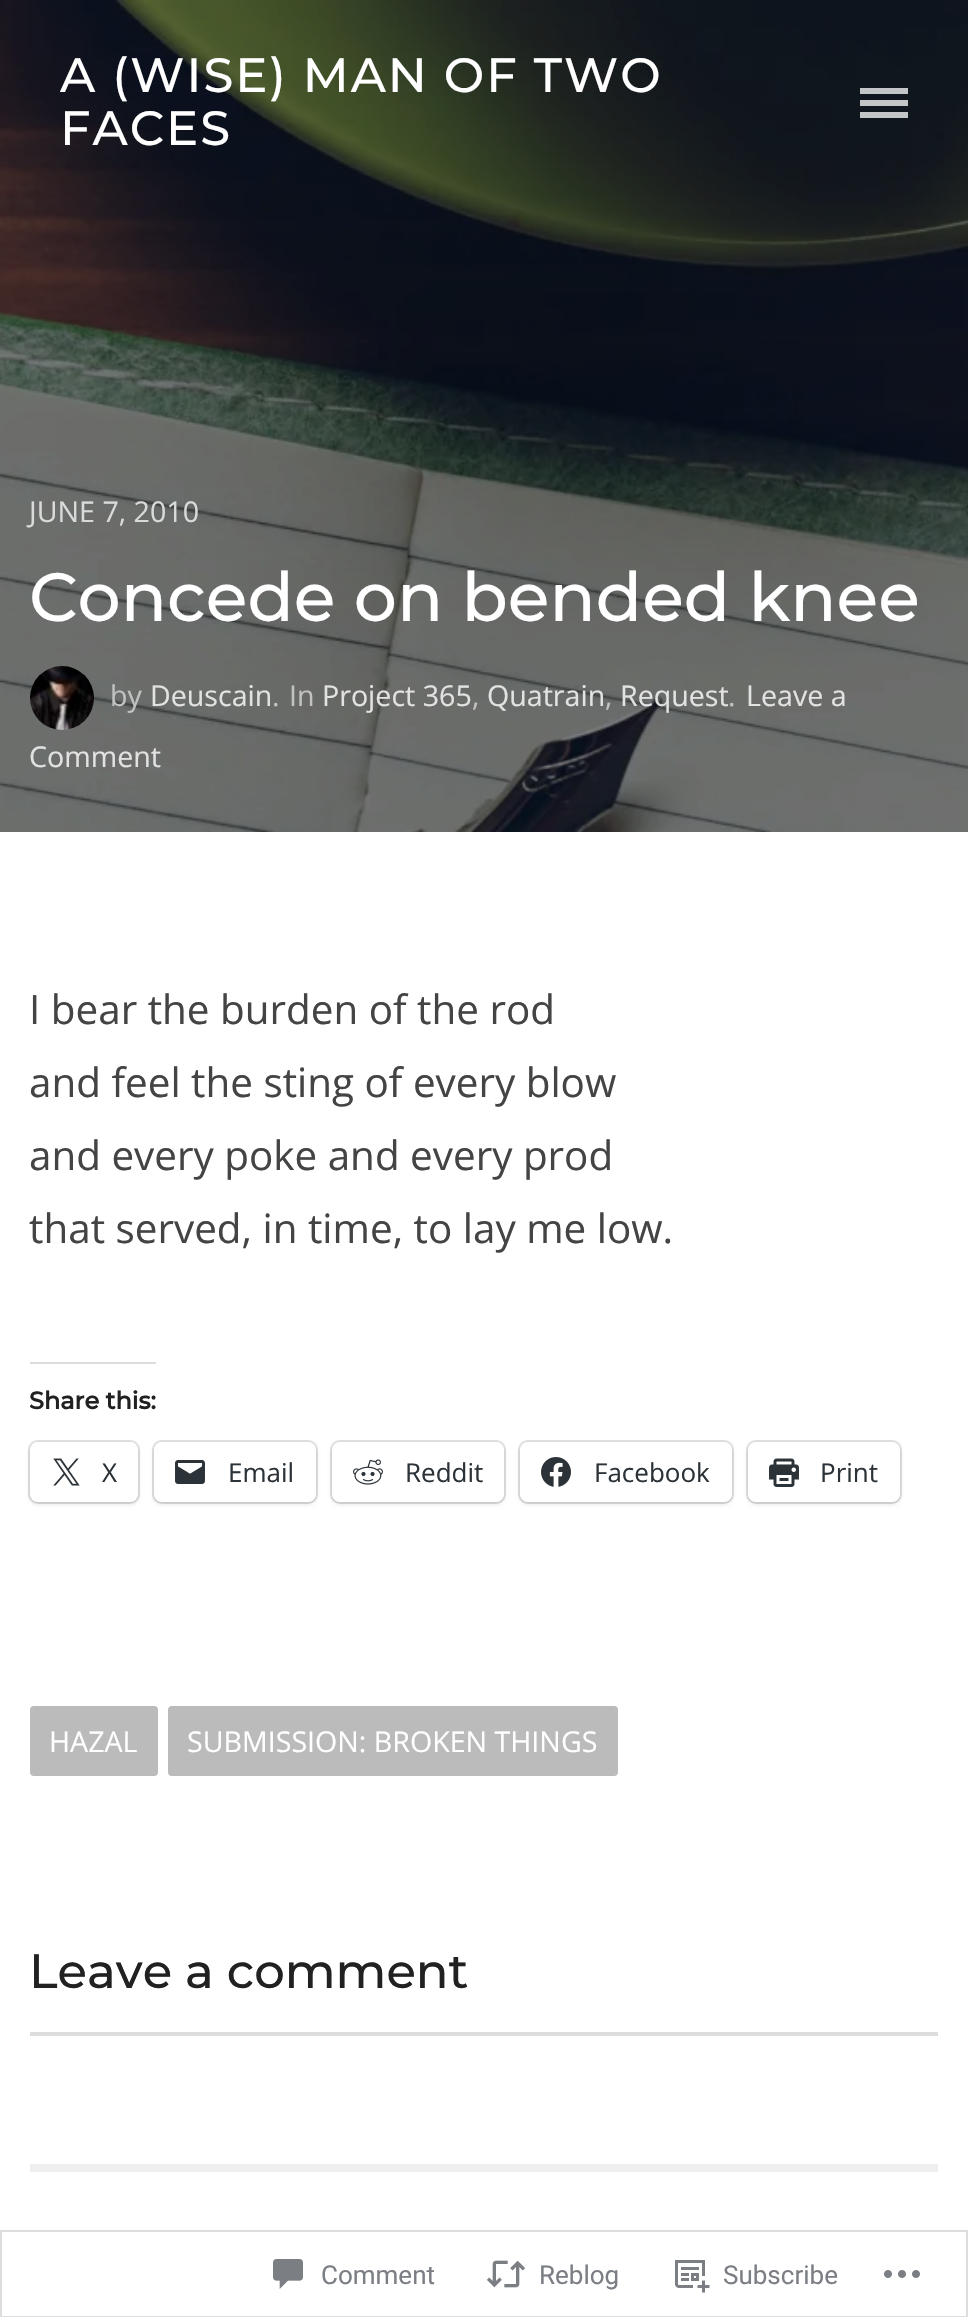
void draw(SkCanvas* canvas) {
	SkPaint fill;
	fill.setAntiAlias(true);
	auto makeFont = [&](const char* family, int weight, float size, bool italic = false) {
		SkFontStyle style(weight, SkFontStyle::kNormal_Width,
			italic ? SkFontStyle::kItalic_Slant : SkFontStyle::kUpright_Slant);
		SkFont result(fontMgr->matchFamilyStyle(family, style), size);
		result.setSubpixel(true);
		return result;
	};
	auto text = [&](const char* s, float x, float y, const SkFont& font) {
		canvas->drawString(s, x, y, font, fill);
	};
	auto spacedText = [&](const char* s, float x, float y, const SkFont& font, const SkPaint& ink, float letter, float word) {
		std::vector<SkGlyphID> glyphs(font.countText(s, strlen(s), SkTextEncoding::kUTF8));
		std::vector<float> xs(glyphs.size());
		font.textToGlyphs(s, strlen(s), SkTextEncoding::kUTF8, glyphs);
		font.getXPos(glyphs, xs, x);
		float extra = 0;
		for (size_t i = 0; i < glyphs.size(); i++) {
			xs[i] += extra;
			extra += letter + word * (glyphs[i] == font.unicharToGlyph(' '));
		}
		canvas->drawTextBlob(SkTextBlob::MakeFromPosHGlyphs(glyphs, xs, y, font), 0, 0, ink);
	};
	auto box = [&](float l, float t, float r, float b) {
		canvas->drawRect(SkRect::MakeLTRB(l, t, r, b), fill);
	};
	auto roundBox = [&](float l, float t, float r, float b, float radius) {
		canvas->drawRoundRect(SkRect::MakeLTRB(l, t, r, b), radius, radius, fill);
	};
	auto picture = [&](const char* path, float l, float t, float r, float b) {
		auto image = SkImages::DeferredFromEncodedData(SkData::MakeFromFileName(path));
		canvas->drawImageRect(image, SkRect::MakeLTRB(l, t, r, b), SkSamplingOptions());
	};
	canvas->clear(0xFFFFFFFF);
	picture("image0.png", 0, 0, 968, 832);
	fill.setColor(0xFFC3C5C7);
	box(860, 88, 908, 94);
	box(860, 100, 908, 106);
	box(860, 112, 908, 118);
	picture("image1.png", 30, 666, 94, 730);
	fill.setColor(0xFFDCDCDE);
	box(30, 1362, 156, 1364);
	fill.setStyle(SkPaint::kStroke_Style);
	fill.setStrokeWidth(2);
	fill.setColor(0xFFE0E0E0);
	canvas->drawRoundRect(SkRect::MakeLTRB(29, 1441, 139, 1503), 9, 9, fill);
	fill.setStyle(SkPaint::kFill_Style);
	fill.setColor(0x1F000000);
	fill.setMaskFilter(SkMaskFilter::MakeBlur(kNormal_SkBlurStyle, 2));
	canvas->drawRoundRect(SkRect::MakeLTRB(30, 1444, 138, 1504), 8, 8, fill);
	fill.setMaskFilter(nullptr);
	fill.setColor(0xFFFFFFFF);
	roundBox(30, 1442, 138, 1502, 8);
	picture("image2.png", 53, 1458, 80, 1486);
	fill.setStyle(SkPaint::kStroke_Style);
	fill.setColor(0xFFE0E0E0);
	canvas->drawRoundRect(SkRect::MakeLTRB(153, 1441, 317, 1503), 9, 9, fill);
	fill.setStyle(SkPaint::kFill_Style);
	fill.setColor(0x1F000000);
	fill.setMaskFilter(SkMaskFilter::MakeBlur(kNormal_SkBlurStyle, 2));
	canvas->drawRoundRect(SkRect::MakeLTRB(154, 1444, 316, 1504), 8, 8, fill);
	fill.setMaskFilter(nullptr);
	fill.setColor(0xFFFFFFFF);
	roundBox(154, 1442, 316, 1502, 8);
	picture("image3.png", 175, 1460, 205, 1484);
	fill.setStyle(SkPaint::kStroke_Style);
	fill.setColor(0xFFE0E0E0);
	canvas->drawRoundRect(SkRect::MakeLTRB(331, 1441, 505, 1503), 9, 9, fill);
	fill.setStyle(SkPaint::kFill_Style);
	fill.setColor(0x1F000000);
	fill.setMaskFilter(SkMaskFilter::MakeBlur(kNormal_SkBlurStyle, 2));
	canvas->drawRoundRect(SkRect::MakeLTRB(332, 1444, 504, 1504), 8, 8, fill);
	fill.setMaskFilter(nullptr);
	fill.setColor(0xFFFFFFFF);
	roundBox(332, 1442, 504, 1502, 8);
	picture("image4.png", 353, 1459, 383, 1485);
	fill.setStyle(SkPaint::kStroke_Style);
	fill.setColor(0xFFE0E0E0);
	canvas->drawRoundRect(SkRect::MakeLTRB(519, 1441, 733, 1503), 9, 9, fill);
	fill.setStyle(SkPaint::kFill_Style);
	fill.setColor(0x1F000000);
	fill.setMaskFilter(SkMaskFilter::MakeBlur(kNormal_SkBlurStyle, 2));
	canvas->drawRoundRect(SkRect::MakeLTRB(520, 1444, 732, 1504), 8, 8, fill);
	fill.setMaskFilter(nullptr);
	fill.setColor(0xFFFFFFFF);
	roundBox(520, 1442, 732, 1502, 8);
	picture("image5.png", 541, 1457, 571, 1487);
	fill.setStyle(SkPaint::kStroke_Style);
	fill.setColor(0xFFE0E0E0);
	canvas->drawRoundRect(SkRect::MakeLTRB(747, 1441, 901, 1503), 9, 9, fill);
	fill.setStyle(SkPaint::kFill_Style);
	fill.setColor(0x1F000000);
	fill.setMaskFilter(SkMaskFilter::MakeBlur(kNormal_SkBlurStyle, 2));
	canvas->drawRoundRect(SkRect::MakeLTRB(748, 1444, 900, 1504), 8, 8, fill);
	fill.setMaskFilter(nullptr);
	fill.setColor(0xFFFFFFFF);
	roundBox(748, 1442, 900, 1502, 8);
	picture("image6.png", 769, 1458, 799, 1487);
	fill.setColor(0xFFBBBBBB);
	roundBox(30, 1706, 158, 1776, 4);
	roundBox(168, 1706, 618, 1776, 4);
	fill.setColor(0xFFDCDCDE);
	box(30, 2032, 938, 2036);
	fill.setColor(0xFFEEEEEE);
	box(30, 2164, 938, 2172);
	fill.setStyle(SkPaint::kStroke_Style);
	fill.setColor(0xFFDDDDDF);
	canvas->drawRect(SkRect::MakeLTRB(1, 2231, 967, 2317), fill);
	picture("image7.png", 273, 2259, 303, 2289);
	picture("image8.png", 486, 2260, 526, 2288);
	picture("image9.png", 675, 2260, 710, 2293);
	picture("image10.png", 884, 2270, 920, 2278);
	auto font1 = makeFont("Montserrat", 100, 48.1f);
	fill.setStyle(SkPaint::kFill_Style);
	fill.setColor(0xFFFFFFFF);
	spacedText("A (WISE) MAN OF TWO", 60, 92, font1, fill, 2, 0);
	spacedText("FACES", 60, 145, font1, fill, 2, 0);
	auto font2 = makeFont("Open Sans", 400, 28.6f);
	fill.setColor(0xFFD9DAD9);
	text("JUNE 7, 2010", 29, 522, font2);
	auto font3 = makeFont("Montserrat", 100, 68);
	fill.setColor(0xFFFFFFFF);
	text("Concede on bended knee", 29, 621, font3);
	fill.setColor(0xFFC1C2C2);
	text("by", 110, 706, font2);
	fill.setColor(0xFFE1E2E1);
	text("Deuscain", 150, 706, font2);
	fill.setColor(0xFFC1C2C2);
	text(".", 272, 706, font2);
	text("In", 289, 706, font2);
	fill.setColor(0xFFE1E2E1);
	text("Project 365", 322, 706, font2);
	fill.setColor(0xFFC1C2C2);
	text(",", 472, 706, font2);
	fill.setColor(0xFFE1E2E1);
	text("Quatrain", 487, 706, font2);
	fill.setColor(0xFFC1C2C2);
	text(",", 605, 706, font2);
	fill.setColor(0xFFE1E2E1);
	text("Request", 620, 706, font2);
	fill.setColor(0xFFC1C2C2);
	text(".", 728, 706, font2);
	fill.setColor(0xFFE1E2E1);
	text("Leave a", 746, 706, font2);
	text("Comment", 29, 767, font2);
	auto font4 = makeFont("Open Sans", 400, 40.4f);
	fill.setColor(0xFF444444);
	text("I bear the burden of the rod", 29, 1024, font4);
	text("and feel the sting of every blow", 29, 1097, font4);
	text("and every poke and every prod", 29, 1170, font4);
	text("that served, in time, to lay me low.", 29, 1243, font4);
	auto font5 = makeFont("Montserrat", 700, 24);
	fill.setColor(0xFF212121);
	text("Share this:", 29, 1409, font5);
	auto font6 = makeFont("Open Sans", 400, 26);
	fill.setColor(0xFF2C3338);
	text("X", 102, 1482, font6);
	text("Email", 228, 1482, font6);
	text("Reddit", 405, 1482, font6);
	text("Facebook", 594, 1482, font6);
	text("Print", 820, 1482, font6);
	fill.setColor(0xFFFFFFFF);
	text("HAZAL", 49, 1752, font2);
	text("SUBMISSION: BROKEN THINGS", 187, 1752, font2);
	fill.setColor(0xFF212121);
	text("Leave a comment", 29, 1988, font1);
	auto font7 = makeFont("Roboto", 400, 26);
	fill.setColor(0xFF7B7F85);
	text("Comment", 321, 2284, font7);
	text("Reblog", 539, 2284, font7);
	text("Subscribe", 723, 2284, font7);
}
